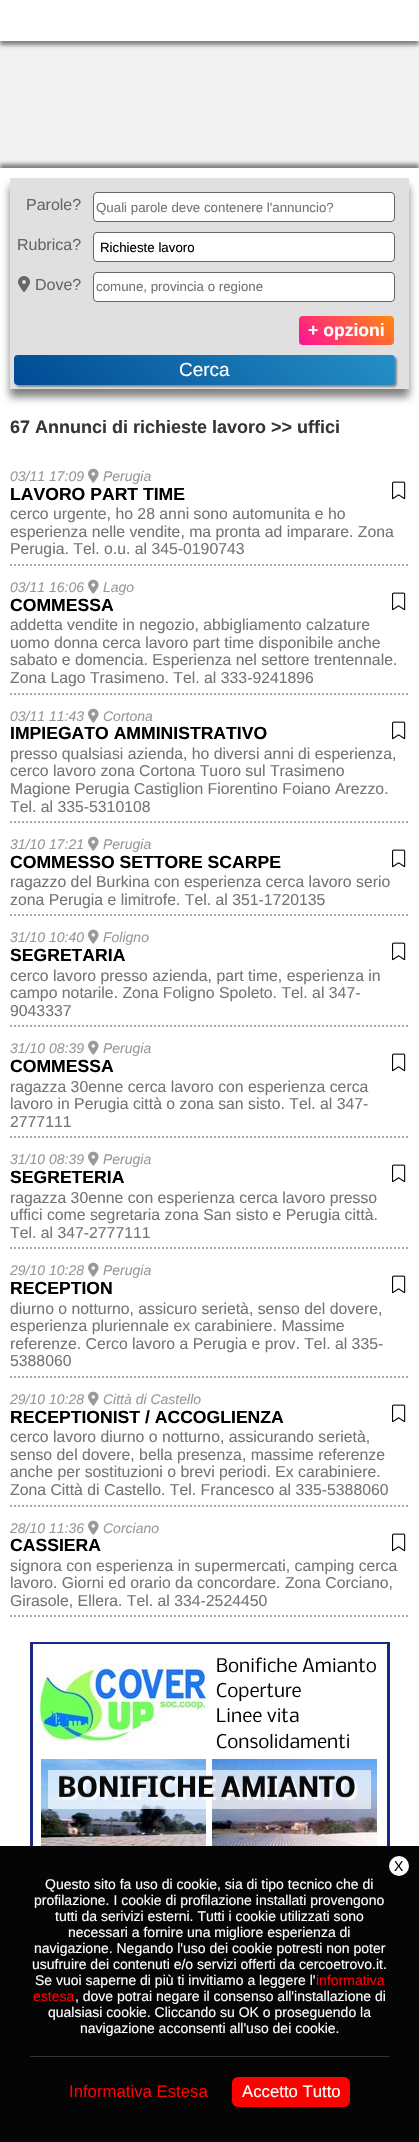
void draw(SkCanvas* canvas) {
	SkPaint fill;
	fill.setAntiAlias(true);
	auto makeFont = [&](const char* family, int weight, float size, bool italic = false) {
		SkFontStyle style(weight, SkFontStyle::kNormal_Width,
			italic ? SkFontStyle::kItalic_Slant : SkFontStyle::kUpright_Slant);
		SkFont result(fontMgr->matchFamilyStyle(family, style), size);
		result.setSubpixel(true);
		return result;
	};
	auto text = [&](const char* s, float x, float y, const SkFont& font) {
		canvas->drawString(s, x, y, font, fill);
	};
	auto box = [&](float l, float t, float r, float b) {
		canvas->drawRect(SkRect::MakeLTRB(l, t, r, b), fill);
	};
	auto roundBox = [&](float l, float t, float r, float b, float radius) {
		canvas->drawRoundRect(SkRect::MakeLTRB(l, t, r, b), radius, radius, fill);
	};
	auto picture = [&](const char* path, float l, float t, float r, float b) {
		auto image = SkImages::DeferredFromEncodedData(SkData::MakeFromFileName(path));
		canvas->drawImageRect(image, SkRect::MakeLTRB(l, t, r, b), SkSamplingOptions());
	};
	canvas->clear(0xFFF2F2F2);
	fill.setColor(0xFF808080);
	fill.setMaskFilter(SkMaskFilter::MakeBlur(kNormal_SkBlurStyle, 2));
	canvas->drawRect(SkRect::MakeLTRB(0, 4, 419, 45), fill);
	fill.setMaskFilter(nullptr);
	fill.setColor(0xFFFFFFFF);
	box(0, 0, 419, 41);
	fill.setColor(0xFF808080);
	fill.setMaskFilter(SkMaskFilter::MakeBlur(kNormal_SkBlurStyle, 2));
	canvas->drawRect(SkRect::MakeLTRB(0, 164, 419, 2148), fill);
	fill.setMaskFilter(nullptr);
	fill.setColor(0xFFFFFFFF);
	box(0, 168, 419, 1846);
	fill.setColor(0xFF808080);
	fill.setMaskFilter(SkMaskFilter::MakeBlur(kNormal_SkBlurStyle, 4));
	canvas->drawRect(SkRect::MakeLTRB(10, 186, 409, 397), fill);
	fill.setMaskFilter(nullptr);
	fill.setColor(0xFFE0E0E0);
	box(10, 178, 409, 389);
	fill.setColor(0xFFFFFFFF);
	canvas->drawRoundRect(SkRect::MakeLTRB(93.5f, 192.5f, 394.5f, 221.5f), 3.5f, 3.5f, fill);
	fill.setStyle(SkPaint::kStroke_Style);
	fill.setStrokeWidth(1);
	fill.setColor(0xFF666666);
	canvas->drawRoundRect(SkRect::MakeLTRB(93.5f, 192.5f, 394.5f, 221.5f), 3.5f, 3.5f, fill);
	fill.setStyle(SkPaint::kFill_Style);
	fill.setColor(0xFFFFFFFF);
	canvas->drawRoundRect(SkRect::MakeLTRB(93.5f, 232.5f, 394.5f, 261.5f), 3.5f, 3.5f, fill);
	fill.setStyle(SkPaint::kStroke_Style);
	fill.setColor(0xFF666666);
	canvas->drawRoundRect(SkRect::MakeLTRB(93.5f, 232.5f, 394.5f, 261.5f), 3.5f, 3.5f, fill);
	picture("image0.png", 18, 276, 30, 292);
	fill.setStyle(SkPaint::kFill_Style);
	fill.setColor(0xFFFFFFFF);
	canvas->drawRoundRect(SkRect::MakeLTRB(93.5f, 272.5f, 394.5f, 301.5f), 3.5f, 3.5f, fill);
	fill.setStyle(SkPaint::kStroke_Style);
	fill.setColor(0xFF666666);
	canvas->drawRoundRect(SkRect::MakeLTRB(93.5f, 272.5f, 394.5f, 301.5f), 3.5f, 3.5f, fill);
	fill.setStyle(SkPaint::kFill_Style);
	{
		const SkColor colors[] = {0xFFFF0F97, 0xFFFF8B0F};
		const float stops[] = {0, 1};
		const SkPoint ends[] = {{316, 362}, {378, 300}};
		fill.setShader(SkGradientShader::MakeLinear(ends, colors, stops, 2, SkTileMode::kClamp));
		fill.setAlpha(255);
	}
	roundBox(299, 316, 394, 345, 4);
	fill.setShader(nullptr);
	fill.setColor(0xFF888888);
	fill.setMaskFilter(SkMaskFilter::MakeBlur(kNormal_SkBlurStyle, 1));
	canvas->drawRoundRect(SkRect::MakeLTRB(16, 357, 397, 387), 4, 4, fill);
	fill.setMaskFilter(nullptr);
	{
		const SkColor colors[] = {0xFF004B94, 0xFF258FC6};
		const float stops[] = {0, 1};
		const SkPoint ends[] = {{102, 473}, {307, 267}};
		fill.setShader(SkGradientShader::MakeLinear(ends, colors, stops, 2, SkTileMode::kClamp));
		fill.setAlpha(255);
	}
	roundBox(14, 355, 395, 385, 4);
	fill.setStyle(SkPaint::kStroke_Style);
	fill.setStrokeWidth(2);
	fill.setShader(nullptr);
	fill.setColor(0xFFAAAAAA);
	fill.setPathEffect(SkDashPathEffect::Make({{2, 2}}, 0));
	canvas->drawPath(SkPathBuilder().moveTo(10, 565).lineTo(409, 565).detach(), fill);
	fill.setPathEffect(nullptr);
	picture("image1.png", 88, 468, 99, 483);
	picture("image2.png", 392, 481, 406, 500);
	fill.setPathEffect(SkDashPathEffect::Make({{2, 2}}, 0));
	canvas->drawPath(SkPathBuilder().moveTo(10, 694).lineTo(409, 694).detach(), fill);
	fill.setPathEffect(nullptr);
	picture("image1.png", 88, 579, 99, 594);
	picture("image2.png", 392, 592, 406, 611);
	fill.setPathEffect(SkDashPathEffect::Make({{2, 2}}, 0));
	canvas->drawPath(SkPathBuilder().moveTo(10, 822).lineTo(409, 822).detach(), fill);
	fill.setPathEffect(nullptr);
	picture("image1.png", 88, 708, 99, 723);
	picture("image2.png", 392, 721, 406, 740);
	fill.setPathEffect(SkDashPathEffect::Make({{2, 2}}, 0));
	canvas->drawPath(SkPathBuilder().moveTo(10, 915).lineTo(409, 915).detach(), fill);
	fill.setPathEffect(nullptr);
	picture("image1.png", 88, 836, 99, 851);
	picture("image2.png", 392, 849, 406, 868);
	fill.setPathEffect(SkDashPathEffect::Make({{2, 2}}, 0));
	canvas->drawPath(SkPathBuilder().moveTo(10, 1026).lineTo(409, 1026).detach(), fill);
	fill.setPathEffect(nullptr);
	picture("image1.png", 88, 929, 99, 944);
	picture("image2.png", 392, 942, 406, 961);
	fill.setPathEffect(SkDashPathEffect::Make({{2, 2}}, 0));
	canvas->drawPath(SkPathBuilder().moveTo(10, 1137).lineTo(409, 1137).detach(), fill);
	fill.setPathEffect(nullptr);
	picture("image1.png", 88, 1040, 99, 1055);
	picture("image2.png", 392, 1053, 406, 1072);
	fill.setPathEffect(SkDashPathEffect::Make({{2, 2}}, 0));
	canvas->drawPath(SkPathBuilder().moveTo(10, 1248).lineTo(409, 1248).detach(), fill);
	fill.setPathEffect(nullptr);
	picture("image1.png", 88, 1151, 99, 1166);
	picture("image2.png", 392, 1164, 406, 1183);
	fill.setPathEffect(SkDashPathEffect::Make({{2, 2}}, 0));
	canvas->drawPath(SkPathBuilder().moveTo(10, 1377).lineTo(409, 1377).detach(), fill);
	fill.setPathEffect(nullptr);
	picture("image1.png", 88, 1262, 99, 1277);
	picture("image2.png", 392, 1275, 406, 1294);
	fill.setPathEffect(SkDashPathEffect::Make({{2, 2}}, 0));
	canvas->drawPath(SkPathBuilder().moveTo(10, 1506).lineTo(409, 1506).detach(), fill);
	fill.setPathEffect(nullptr);
	picture("image1.png", 88, 1391, 99, 1406);
	picture("image2.png", 392, 1404, 406, 1423);
	fill.setPathEffect(SkDashPathEffect::Make({{2, 2}}, 0));
	canvas->drawPath(SkPathBuilder().moveTo(10, 1616).lineTo(409, 1616).detach(), fill);
	fill.setPathEffect(nullptr);
	picture("image1.png", 88, 1520, 99, 1535);
	picture("image2.png", 392, 1533, 406, 1552);
	picture("image3.png", 30, 1642, 390, 1846);
	fill.setStyle(SkPaint::kFill_Style);
	fill.setColor(0xFF050505);
	box(0, 1846, 419, 2142);
	fill.setColor(0xFFFFFFFF);
	canvas->drawCircle(399, 1866, 10, fill);
	fill.setColor(0xFF333333);
	box(30, 2056, 389, 2057);
	fill.setColor(0xFFFF0000);
	roundBox(232, 2077, 350, 2107, 6);
	auto font1 = makeFont("Liberation Sans", 400, 16);
	fill.setColor(0xFF666666);
	text("Parole?", 26, 210, font1);
	auto font2 = makeFont("Liberation Sans", 400, 13.3f);
	fill.setColor(0xFF757575);
	text("Quali parole deve contenere l'annuncio?", 96, 212, font2);
	fill.setColor(0xFF666666);
	text("Rubrica?", 17, 250, font1);
	fill.setColor(0xFF000000);
	text("Richieste lavoro", 100, 252, font2);
	fill.setColor(0xFF666666);
	text("Dove?", 35, 290, font1);
	fill.setColor(0xFF757575);
	text("comune, provincia o regione", 96, 291, font2);
	auto font3 = makeFont("Liberation Sans", 700, 17.6f);
	fill.setColor(0xFFFFFFFF);
	text("+ opzioni", 308, 336, font3);
	auto font4 = makeFont("Liberation Sans", 400, 19);
	text("Cerca", 179, 376, font4);
	auto font5 = makeFont("Liberation Sans", 700, 18);
	fill.setColor(0xFF373636);
	text("67 Annunci di richieste lavoro >> uffici", 10, 433, font5);
	auto font6 = makeFont("Liberation Sans", 400, 14, true);
	fill.setColor(0xFF999999);
	text("03/11 17:09", 10, 481, font6);
	text("Perugia", 103, 481, font6);
	fill.setColor(0xFF000000);
	text("LAVORO PART TIME", 10, 500, font3);
	auto font7 = makeFont("Liberation Sans", 400, 15.8f);
	fill.setColor(0xFF757575);
	text("cerco urgente, ho 28 anni sono automunita e ho", 10, 519, font7);
	text("esperienza nelle vendite, ma pronta ad imparare. Zona", 10, 537, font7);
	text("Perugia. Tel. o.u. al 345-0190743", 10, 554, font7);
	fill.setColor(0xFF999999);
	text("03/11 16:06", 10, 592, font6);
	text("Lago", 103, 592, font6);
	fill.setColor(0xFF000000);
	text("COMMESSA", 10, 611, font3);
	fill.setColor(0xFF757575);
	text("addetta vendite in negozio, abbigliamento calzature", 10, 630, font7);
	text("uomo donna cerca lavoro part time disponibile anche", 10, 648, font7);
	text("sabato e domencia. Esperienza nel settore trentennale.", 10, 665, font7);
	text("Zona Lago Trasimeno. Tel. al 333-9241896", 10, 683, font7);
	fill.setColor(0xFF999999);
	text("03/11 11:43", 10, 721, font6);
	text("Cortona", 103, 721, font6);
	fill.setColor(0xFF000000);
	text("IMPIEGATO AMMINISTRATIVO", 10, 739, font3);
	fill.setColor(0xFF757575);
	text("presso qualsiasi azienda, ho diversi anni di esperienza,", 10, 759, font7);
	text("cerco lavoro zona Cortona Tuoro sul Trasimeno", 10, 776, font7);
	text("Magione Perugia Castiglion Fiorentino Foiano Arezzo.", 10, 794, font7);
	text("Tel. al 335-5310108", 10, 812, font7);
	fill.setColor(0xFF999999);
	text("31/10 17:21", 10, 849, font6);
	text("Perugia", 103, 849, font6);
	fill.setColor(0xFF000000);
	text("COMMESSO SETTORE SCARPE", 10, 868, font3);
	fill.setColor(0xFF757575);
	text("ragazzo del Burkina con esperienza cerca lavoro serio", 10, 887, font7);
	text("zona Perugia e limitrofe. Tel. al 351-1720135", 10, 905, font7);
	fill.setColor(0xFF999999);
	text("31/10 10:40", 10, 942, font6);
	text("Foligno", 103, 942, font6);
	fill.setColor(0xFF000000);
	text("SEGRETARIA", 10, 961, font3);
	fill.setColor(0xFF757575);
	text("cerco lavoro presso azienda, part time, esperienza in", 10, 981, font7);
	text("campo notarile. Zona Foligno Spoleto. Tel. al 347-", 10, 998, font7);
	text("9043337", 10, 1016, font7);
	fill.setColor(0xFF999999);
	text("31/10 08:39", 10, 1053, font6);
	text("Perugia", 103, 1053, font6);
	fill.setColor(0xFF000000);
	text("COMMESSA", 10, 1072, font3);
	fill.setColor(0xFF757575);
	text("ragazza 30enne cerca lavoro con esperienza cerca", 10, 1092, font7);
	text("lavoro in Perugia città o zona san sisto. Tel. al 347-", 10, 1109, font7);
	text("2777111", 10, 1127, font7);
	fill.setColor(0xFF999999);
	text("31/10 08:39", 10, 1164, font6);
	text("Perugia", 103, 1164, font6);
	fill.setColor(0xFF000000);
	text("SEGRETERIA", 10, 1183, font3);
	fill.setColor(0xFF757575);
	text("ragazza 30enne con esperienza cerca lavoro presso", 10, 1203, font7);
	text("uffici come segretaria zona San sisto e Perugia città.", 10, 1220, font7);
	text("Tel. al 347-2777111", 10, 1238, font7);
	fill.setColor(0xFF999999);
	text("29/10 10:28", 10, 1275, font6);
	text("Perugia", 103, 1275, font6);
	fill.setColor(0xFF000000);
	text("RECEPTION", 10, 1294, font3);
	fill.setColor(0xFF757575);
	text("diurno o notturno, assicuro serietà, senso del dovere,", 10, 1314, font7);
	text("esperienza pluriennale ex carabiniere. Massime", 10, 1331, font7);
	text("referenze. Cerco lavoro a Perugia e prov. Tel. al 335-", 10, 1349, font7);
	text("5388060", 10, 1366, font7);
	fill.setColor(0xFF999999);
	text("29/10 10:28", 10, 1404, font6);
	text("Città di Castello", 103, 1404, font6);
	fill.setColor(0xFF000000);
	text("RECEPTIONIST / ACCOGLIENZA", 10, 1423, font3);
	fill.setColor(0xFF757575);
	text("cerco lavoro diurno o notturno, assicurando serietà,", 10, 1442, font7);
	text("senso del dovere, bella presenza, massime referenze", 10, 1460, font7);
	text("anche per sostituzioni o brevi periodi. Ex carabiniere.", 10, 1477, font7);
	text("Zona Città di Castello. Tel. Francesco al 335-5388060", 10, 1495, font7);
	fill.setColor(0xFF999999);
	text("28/10 11:36", 10, 1533, font6);
	text("Corciano", 103, 1533, font6);
	fill.setColor(0xFF000000);
	text("CASSIERA", 10, 1551, font3);
	fill.setColor(0xFF757575);
	text("signora con esperienza in supermercati, camping cerca", 10, 1571, font7);
	text("lavoro. Giorni ed orario da concordare. Zona Corciano,", 10, 1588, font7);
	text("Girasole, Ellera. Tel. al 334-2524450", 10, 1606, font7);
	auto font8 = makeFont("Liberation Sans", 400, 14);
	fill.setColor(0xFF000000);
	text("X", 394, 1871, font8);
	fill.setColor(0xFFFFFFFF);
	text("Questo sito fa uso di cookie, sia di tipo tecnico che di", 45, 1889, font8);
	text("profilazione. I cookie di profilazione installati provengono", 34, 1905, font8);
	text("tutti da serivizi esterni. Tutti i cookie utilizzati sono", 55, 1921, font8);
	text("necessari a fornire una migliore esperienza di", 68, 1937, font8);
	text("navigazione. Negando l'uso dei cookie potresti non poter", 34, 1953, font8);
	text("usufruire dei contenuti e/o servizi offerti da cercoetrovo.it.", 32, 1969, font8);
	text("Se vuoi saperne di più ti invitiamo a leggere l'", 35, 1985, font8);
	fill.setColor(0xFFFF0000);
	text("informativa", 316, 1985, font8);
	text("estesa", 33, 2001, font8);
	fill.setColor(0xFFFFFFFF);
	text(", dove potrai negare il consenso all'installazione di", 75, 2001, font8);
	text("qualsiasi cookie. Cliccando su OK o proseguendo la", 48, 2017, font8);
	text("navigazione acconsenti all'uso dei cookie.", 80, 2033, font8);
	auto font9 = makeFont("Liberation Sans", 400, 16.75f);
	fill.setColor(0xFFFF0000);
	text("Informativa Estesa", 69, 2097, font9);
	fill.setColor(0xFFFFFFFF);
	text("Accetto Tutto", 242, 2097, font9);
}
